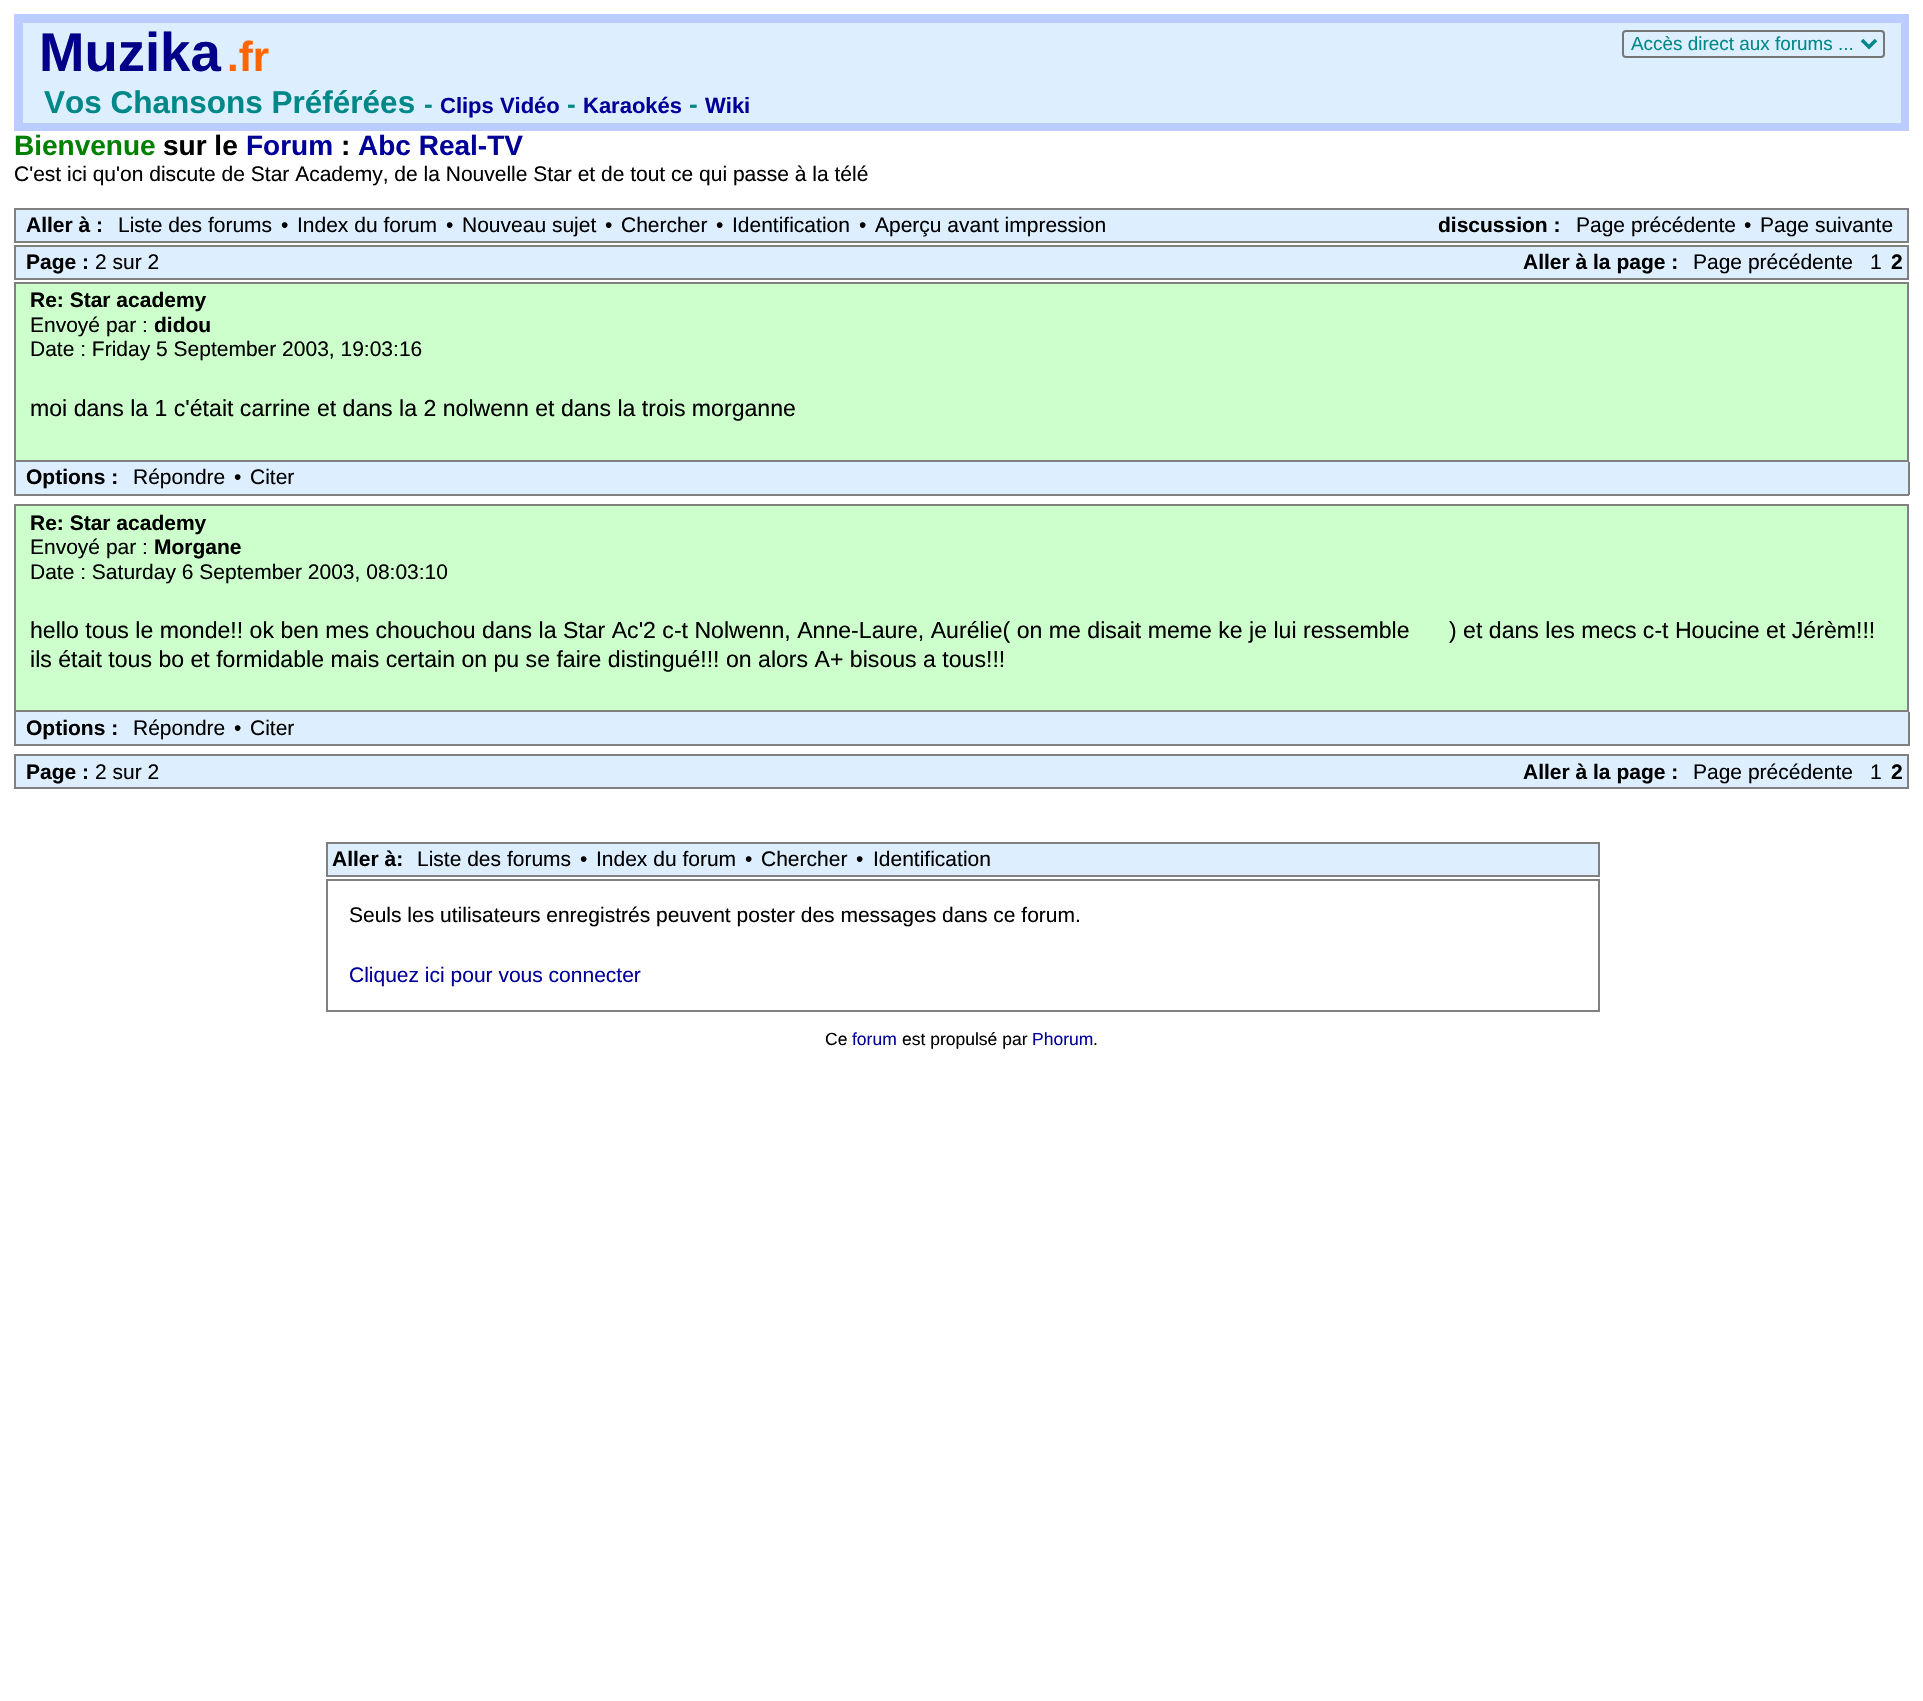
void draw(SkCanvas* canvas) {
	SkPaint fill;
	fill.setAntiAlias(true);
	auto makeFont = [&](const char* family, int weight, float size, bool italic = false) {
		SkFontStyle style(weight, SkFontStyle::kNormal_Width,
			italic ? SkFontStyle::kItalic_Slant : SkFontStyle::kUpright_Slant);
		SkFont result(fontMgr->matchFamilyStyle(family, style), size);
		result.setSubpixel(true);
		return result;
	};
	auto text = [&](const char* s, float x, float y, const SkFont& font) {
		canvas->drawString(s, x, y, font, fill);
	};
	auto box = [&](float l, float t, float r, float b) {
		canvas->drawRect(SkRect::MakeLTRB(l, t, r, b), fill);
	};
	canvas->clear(0xFFFFFFFF);
	fill.setColor(0xFFBBCCFF);
	box(14, 14, 1909, 131);
	fill.setColor(0xFFDDEEFF);
	box(23, 23, 1901, 123);
	fill.setStyle(SkPaint::kStroke_Style);
	fill.setStrokeWidth(2);
	fill.setColor(0xFF767676);
	canvas->drawRoundRect(SkRect::MakeLTRB(1623, 31, 1884, 57), 3, 3, fill);
	fill.setStrokeWidth(3.5f);
	fill.setColor(0xFF008888);
	canvas->drawPath(SkPathBuilder().moveTo(1862, 40).lineTo(1869, 47).lineTo(1876, 40).detach(), fill);
	fill.setStyle(SkPaint::kFill_Style);
	fill.setColor(0xFFDDEEFF);
	canvas->drawRect(SkRect::MakeLTRB(15, 209, 1908, 242), fill);
	fill.setStyle(SkPaint::kStroke_Style);
	fill.setStrokeWidth(2);
	fill.setColor(0xFF808080);
	canvas->drawRect(SkRect::MakeLTRB(15, 209, 1908, 242), fill);
	fill.setStyle(SkPaint::kFill_Style);
	fill.setColor(0xFFDDEEFF);
	canvas->drawRect(SkRect::MakeLTRB(15, 246, 1908, 279), fill);
	fill.setStyle(SkPaint::kStroke_Style);
	fill.setColor(0xFF808080);
	canvas->drawRect(SkRect::MakeLTRB(15, 246, 1908, 279), fill);
	fill.setStyle(SkPaint::kFill_Style);
	fill.setColor(0xFFCCFFCC);
	canvas->drawRect(SkRect::MakeLTRB(15, 283, 1908, 461), fill);
	fill.setStyle(SkPaint::kStroke_Style);
	fill.setColor(0xFF808080);
	canvas->drawRect(SkRect::MakeLTRB(15, 283, 1908, 461), fill);
	fill.setStyle(SkPaint::kFill_Style);
	fill.setColor(0xFFDDEEFF);
	box(16, 462, 1908, 494);
	fill.setColor(0xFF808080);
	box(1908, 462, 1910, 495);
	box(14, 494, 1909, 496);
	box(14, 462, 16, 495);
	fill.setColor(0xFFCCFFCC);
	canvas->drawRect(SkRect::MakeLTRB(15, 505, 1908, 711), fill);
	fill.setStyle(SkPaint::kStroke_Style);
	fill.setColor(0xFF808080);
	canvas->drawRect(SkRect::MakeLTRB(15, 505, 1908, 711), fill);
	fill.setStyle(SkPaint::kFill_Style);
	fill.setColor(0xFFDDEEFF);
	box(16, 712, 1908, 744);
	fill.setColor(0xFF808080);
	box(1908, 712, 1910, 746);
	box(14, 744, 1909, 746);
	box(14, 712, 16, 746);
	fill.setColor(0xFFDDEEFF);
	canvas->drawRect(SkRect::MakeLTRB(15, 755, 1908, 788), fill);
	fill.setStyle(SkPaint::kStroke_Style);
	fill.setColor(0xFF808080);
	canvas->drawRect(SkRect::MakeLTRB(15, 755, 1908, 788), fill);
	fill.setStyle(SkPaint::kFill_Style);
	fill.setColor(0xFFDDEEFF);
	canvas->drawRect(SkRect::MakeLTRB(327, 843, 1599, 876), fill);
	fill.setStyle(SkPaint::kStroke_Style);
	fill.setColor(0xFF808080);
	canvas->drawRect(SkRect::MakeLTRB(327, 843, 1599, 876), fill);
	canvas->drawRect(SkRect::MakeLTRB(327, 880, 1599, 1011), fill);
	auto font1 = makeFont("Liberation Sans", 700, 54.5f);
	fill.setStyle(SkPaint::kFill_Style);
	fill.setColor(0xFF000088);
	text("Muzika", 39, 71, font1);
	auto font2 = makeFont("Liberation Sans", 700, 42);
	fill.setColor(0xFFFF6600);
	text(".fr", 227, 71, font2);
	auto font3 = makeFont("Liberation Sans", 700, 31.5f);
	fill.setColor(0xFF008888);
	text("Vos Chansons Préférées", 44, 113, font3);
	auto font4 = makeFont("Liberation Sans", 700, 26);
	text("-", 424, 113, font4);
	auto font5 = makeFont("Liberation Sans", 700, 22);
	fill.setColor(0xFF000099);
	text("Clips Vidéo", 440, 113, font5);
	fill.setColor(0xFF008888);
	text("-", 567, 113, font4);
	fill.setColor(0xFF000099);
	text("Karaokés", 583, 113, font5);
	fill.setColor(0xFF008888);
	text("-", 689, 113, font4);
	fill.setColor(0xFF000099);
	text("Wiki", 705, 113, font5);
	auto font6 = makeFont("Liberation Sans", 400, 18.9f);
	fill.setColor(0xFF008888);
	text("Accès direct aux forums ...", 1631, 50, font6);
	auto font7 = makeFont("Liberation Sans", 700, 28);
	fill.setColor(0xFF008000);
	text("Bienvenue", 14, 155, font7);
	fill.setColor(0xFF000000);
	text("sur le", 163, 155, font7);
	fill.setColor(0xFF000099);
	text("Forum", 246, 155, font7);
	fill.setColor(0xFF000000);
	text(":", 341, 155, font7);
	fill.setColor(0xFF000099);
	text("Abc Real-TV", 358, 155, font7);
	auto font8 = makeFont("Liberation Sans", 400, 21);
	fill.setColor(0xFF000000);
	text("C'est ici qu'on discute de Star Academy, de la Nouvelle Star et de tout ce qui passe à la télé", 14, 181, font8);
	auto font9 = makeFont("Liberation Sans", 700, 21);
	text("Aller à :", 26, 232, font9);
	text("Liste des forums", 118, 232, font8);
	text("•", 281, 232, font8);
	text("Index du forum", 297, 232, font8);
	text("•", 446, 232, font8);
	text("Nouveau sujet", 462, 232, font8);
	text("•", 605, 232, font8);
	text("Chercher", 621, 232, font8);
	text("•", 716, 232, font8);
	text("Identification", 732, 232, font8);
	text("•", 859, 232, font8);
	text("Aperçu avant impression", 875, 232, font8);
	text("discussion :", 1438, 232, font9);
	text("Page précédente", 1576, 232, font8);
	text("•", 1744, 232, font8);
	text("Page suivante", 1760, 232, font8);
	text("Page :", 26, 269, font9);
	text("2 sur 2", 95, 269, font8);
	text("Aller à la page :", 1523, 269, font9);
	text("Page précédente", 1693, 269, font8);
	text("1", 1870, 269, font8);
	text("2", 1891, 269, font9);
	text("Re: Star academy", 30, 307, font9);
	text("Envoyé par :", 30, 332, font8);
	text("didou", 154, 332, font9);
	text("Date : Friday 5 September 2003, 19:03:16", 30, 356, font8);
	auto font10 = makeFont("Liberation Sans", 400, 23.1f);
	text("moi dans la 1 c'était carrine et dans la 2 nolwenn et dans la trois morganne", 30, 416, font10);
	text("Options :", 26, 484, font9);
	text("Répondre", 133, 484, font8);
	text("•", 234, 484, font8);
	text("Citer", 250, 484, font8);
	text("Re: Star academy", 30, 530, font9);
	text("Envoyé par :", 30, 554, font8);
	text("Morgane", 154, 554, font9);
	text("Date : Saturday 6 September 2003, 08:03:10", 30, 579, font8);
	text("hello tous le monde!! ok ben mes chouchou dans la Star Ac'2 c-t Nolwenn, Anne-Laure, Aurélie( on me disait meme ke je lui ressemble", 30, 638, font10);
	text(") et dans les mecs c-t Houcine et Jérèm!!!", 1449, 638, font10);
	text("ils était tous bo et formidable mais certain on pu se faire distingué!!! on alors A+ bisous a tous!!!", 30, 667, font10);
	text("Options :", 26, 735, font9);
	text("Répondre", 133, 735, font8);
	text("•", 234, 735, font8);
	text("Citer", 250, 735, font8);
	text("Page :", 26, 779, font9);
	text("2 sur 2", 95, 779, font8);
	text("Aller à la page :", 1523, 779, font9);
	text("Page précédente", 1693, 779, font8);
	text("1", 1870, 779, font8);
	text("2", 1891, 779, font9);
	text("Aller à:", 332, 866, font9);
	text("Liste des forums", 417, 866, font8);
	text("•", 580, 866, font8);
	text("Index du forum", 596, 866, font8);
	text("•", 745, 866, font8);
	text("Chercher", 761, 866, font8);
	text("•", 856, 866, font8);
	text("Identification", 873, 866, font8);
	text("Seuls les utilisateurs enregistrés peuvent poster des messages dans ce forum.", 349, 922, font8);
	fill.setColor(0xFF000099);
	text("Cliquez ici pour vous connecter", 349, 982, font8);
	auto font11 = makeFont("Liberation Sans", 400, 17.5f);
	fill.setColor(0xFF000000);
	text("Ce", 825, 1045, font11);
	fill.setColor(0xFF000099);
	text("forum", 852, 1045, font11);
	fill.setColor(0xFF000000);
	text("est propulsé par", 902, 1045, font11);
	fill.setColor(0xFF000099);
	text("Phorum", 1032, 1045, font11);
	fill.setColor(0xFF000000);
	text(".", 1093, 1045, font11);
}
